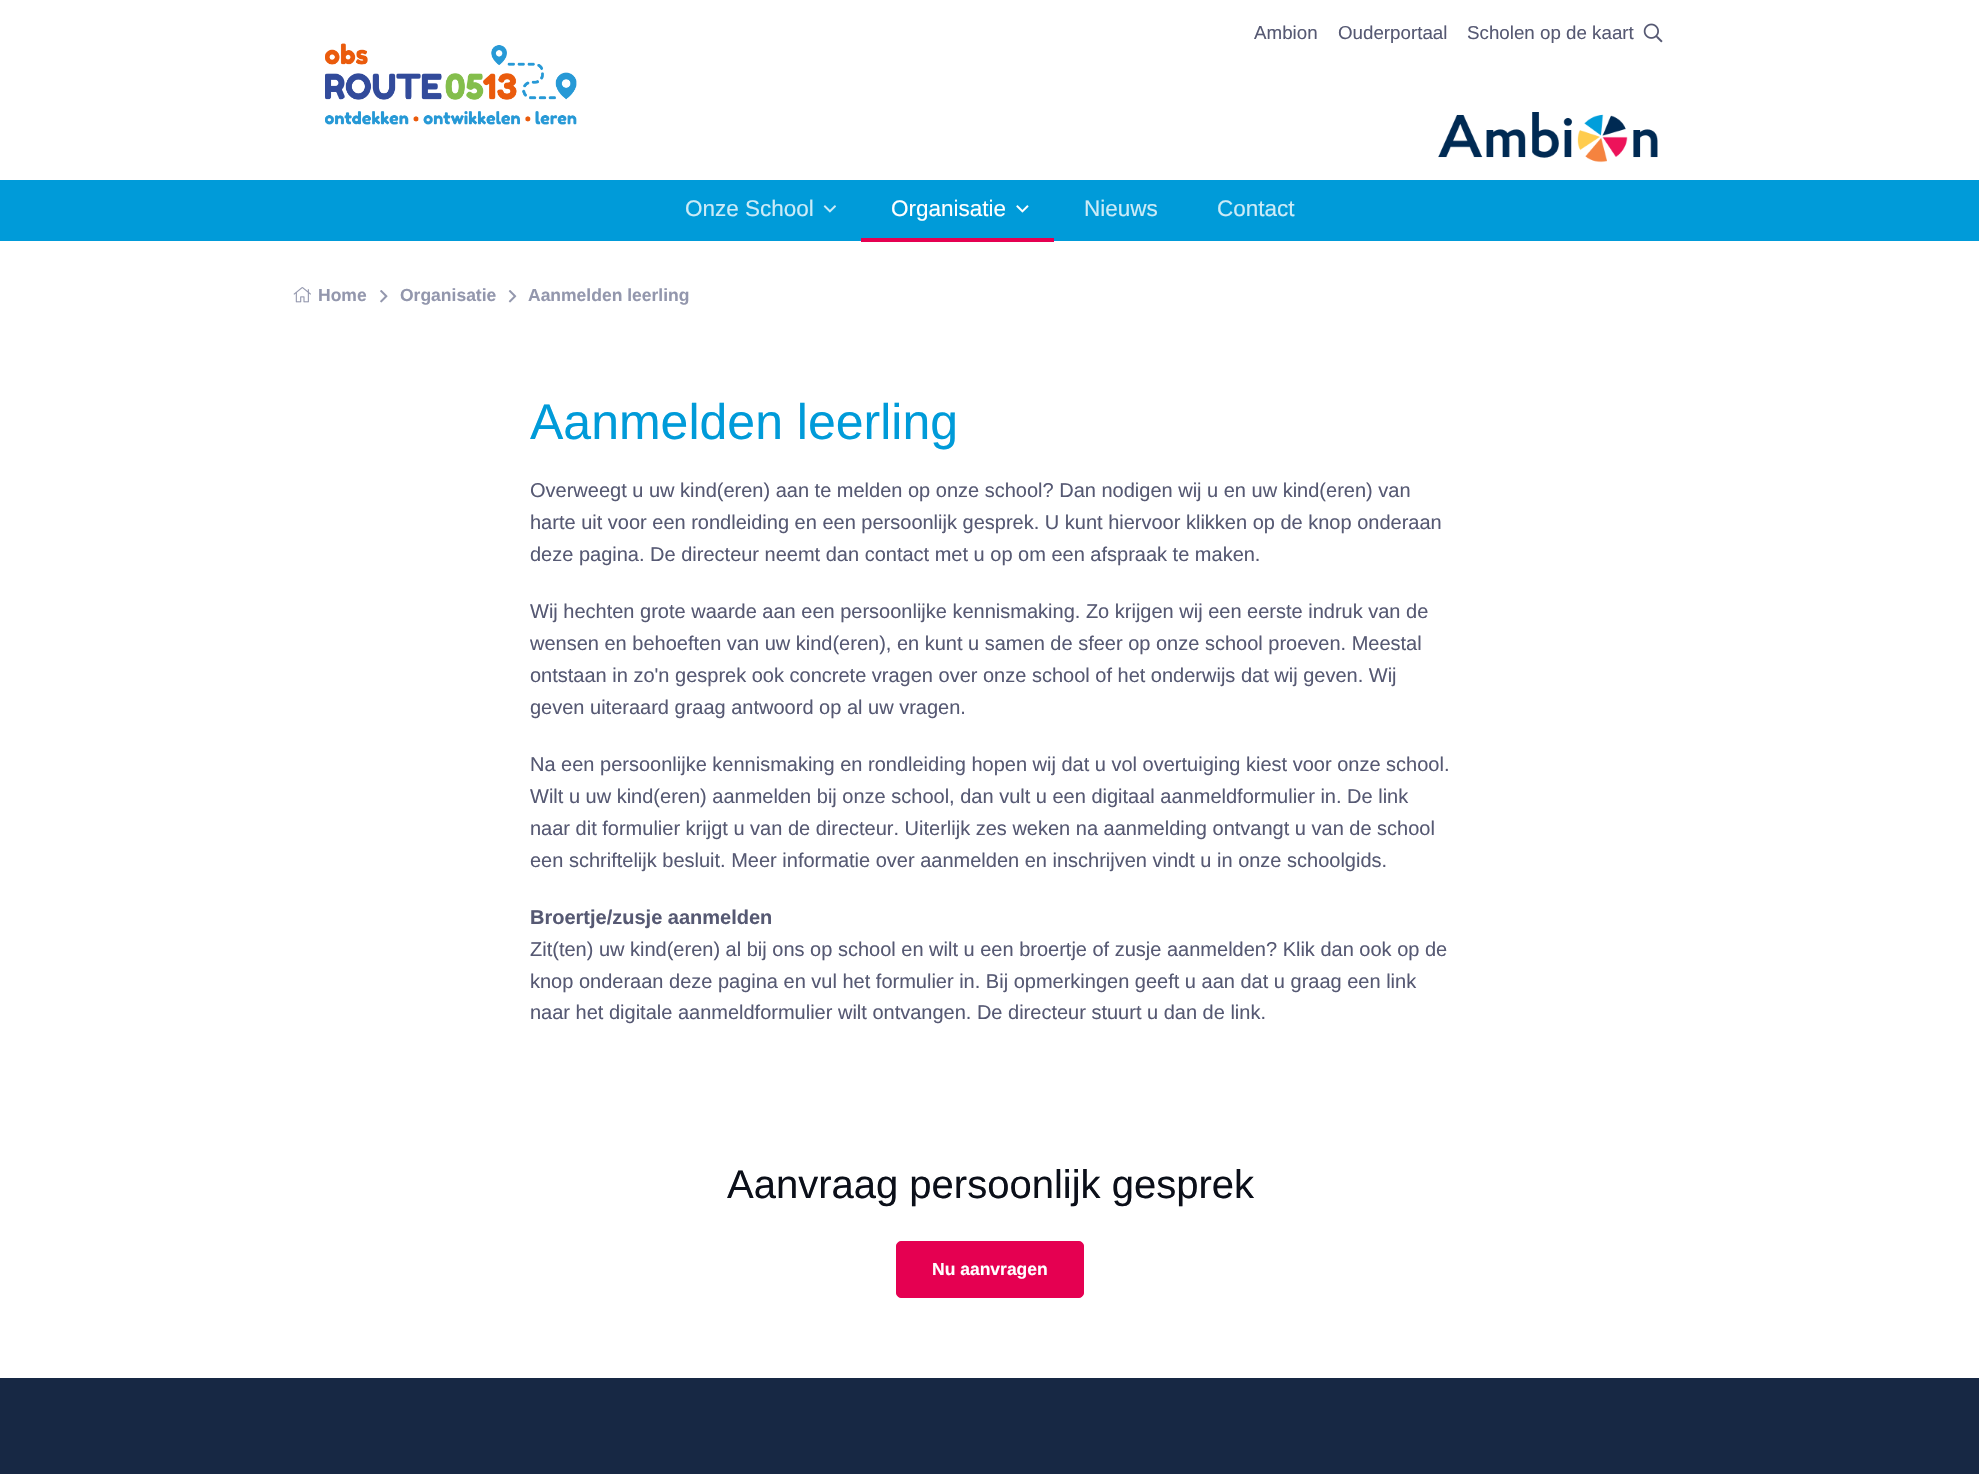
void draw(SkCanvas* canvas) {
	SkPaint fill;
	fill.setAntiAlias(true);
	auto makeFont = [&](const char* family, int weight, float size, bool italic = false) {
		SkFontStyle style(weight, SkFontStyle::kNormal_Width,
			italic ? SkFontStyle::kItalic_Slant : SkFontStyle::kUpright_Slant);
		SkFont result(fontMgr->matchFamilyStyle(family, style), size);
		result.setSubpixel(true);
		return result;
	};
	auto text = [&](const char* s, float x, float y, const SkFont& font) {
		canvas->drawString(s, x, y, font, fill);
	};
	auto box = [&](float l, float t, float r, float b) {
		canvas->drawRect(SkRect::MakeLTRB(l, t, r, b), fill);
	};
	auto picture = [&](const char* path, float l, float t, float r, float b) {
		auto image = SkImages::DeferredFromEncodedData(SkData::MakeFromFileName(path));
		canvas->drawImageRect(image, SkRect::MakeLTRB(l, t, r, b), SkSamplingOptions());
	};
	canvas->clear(0xFFFFFFFF);
	picture("image0.png", 1643, 23, 1663, 43);
	picture("image1.png", 1438, 112, 1658, 163);
	picture("image2.png", 325, 43, 577, 125);
	fill.setColor(0xFF009BD9);
	box(0, 180, 1979, 241);
	picture("image3.png", 823, 205, 836, 213);
	fill.setColor(0xFFE50051);
	box(861, 238, 1054, 242);
	picture("image4.png", 1016, 205, 1029, 213);
	picture("image5.png", 293, 287, 311, 303);
	picture("image6.png", 380, 290, 388, 303);
	picture("image7.png", 508, 290, 517, 303);
	canvas->drawRoundRect(SkRect::MakeLTRB(896.5f, 1241.5f, 1083.5f, 1297.5f), 4.5f, 4.5f, fill);
	fill.setStyle(SkPaint::kStroke_Style);
	fill.setStrokeWidth(1);
	canvas->drawRoundRect(SkRect::MakeLTRB(896.5f, 1241.5f, 1083.5f, 1297.5f), 4.5f, 4.5f, fill);
	fill.setStyle(SkPaint::kFill_Style);
	fill.setColor(0xFF172844);
	box(0, 1378, 1979, 1474);
	auto font1 = makeFont("Liberation Sans", 400, 18.75f);
	fill.setColor(0xFF565973);
	text("Ambion", 1254, 39, font1);
	text("Ouderportaal", 1338, 39, font1);
	text("Scholen op de kaart", 1467, 39, font1);
	auto font2 = makeFont("Liberation Sans", 400, 22.5f);
	fill.setColor(0xFFCCEBF7);
	text("Onze School", 685, 216, font2);
	fill.setColor(0xFFFFFFFF);
	text("Organisatie", 891, 216, font2);
	fill.setColor(0xFFCCEBF7);
	text("Nieuws", 1084, 216, font2);
	text("Contact", 1217, 216, font2);
	auto font3 = makeFont("Liberation Sans", 700, 17.5f);
	fill.setColor(0xFF9397AD);
	text("Home", 318, 301, font3);
	text("Organisatie", 400, 301, font3);
	text("Aanmelden leerling", 528, 301, font3);
	auto font4 = makeFont("Liberation Sans", 400, 50);
	fill.setColor(0xFF009BD9);
	text("Aanmelden leerling", 530, 439, font4);
	auto font5 = makeFont("Liberation Sans", 400, 20);
	fill.setColor(0xFF565973);
	text("Overweegt u uw kind(eren) aan te melden op onze school? Dan nodigen wij u en uw kind(eren) van", 530, 497, font5);
	text("harte uit voor een rondleiding en een persoonlijk gesprek. U kunt hiervoor klikken op de knop onderaan", 530, 529, font5);
	text("deze pagina. De directeur neemt dan contact met u op om een afspraak te maken.", 530, 561, font5);
	text("Wij hechten grote waarde aan een persoonlijke kennismaking. Zo krijgen wij een eerste indruk van de", 530, 618, font5);
	text("wensen en behoeften van uw kind(eren), en kunt u samen de sfeer op onze school proeven. Meestal", 530, 650, font5);
	text("ontstaan in zo'n gesprek ook concrete vragen over onze school of het onderwijs dat wij geven. Wij", 530, 682, font5);
	text("geven uiteraard graag antwoord op al uw vragen.", 530, 714, font5);
	text("Na een persoonlijke kennismaking en rondleiding hopen wij dat u vol overtuiging kiest voor onze school.", 530, 771, font5);
	text("Wilt u uw kind(eren) aanmelden bij onze school, dan vult u een digitaal aanmeldformulier in. De link", 530, 803, font5);
	text("naar dit formulier krijgt u van de directeur. Uiterlijk zes weken na aanmelding ontvangt u van de school", 530, 835, font5);
	text("een schriftelijk besluit. Meer informatie over aanmelden en inschrijven vindt u in onze schoolgids.", 530, 867, font5);
	auto font6 = makeFont("Liberation Sans", 700, 20);
	text("Broertje/zusje aanmelden", 530, 924, font6);
	text("Zit(ten) uw kind(eren) al bij ons op school en wilt u een broertje of zusje aanmelden? Klik dan ook op de", 530, 956, font5);
	text("knop onderaan deze pagina en vul het formulier in. Bij opmerkingen geeft u aan dat u graag een link", 530, 988, font5);
	text("naar het digitale aanmeldformulier wilt ontvangen. De directeur stuurt u dan de link.", 530, 1019, font5);
	auto font7 = makeFont("Liberation Sans", 400, 40);
	fill.setColor(0xFF0B0F19);
	text("Aanvraag persoonlijk gesprek", 727, 1198, font7);
	fill.setColor(0xFFFFFFFF);
	text("Nu aanvragen", 932, 1275, font3);
}
